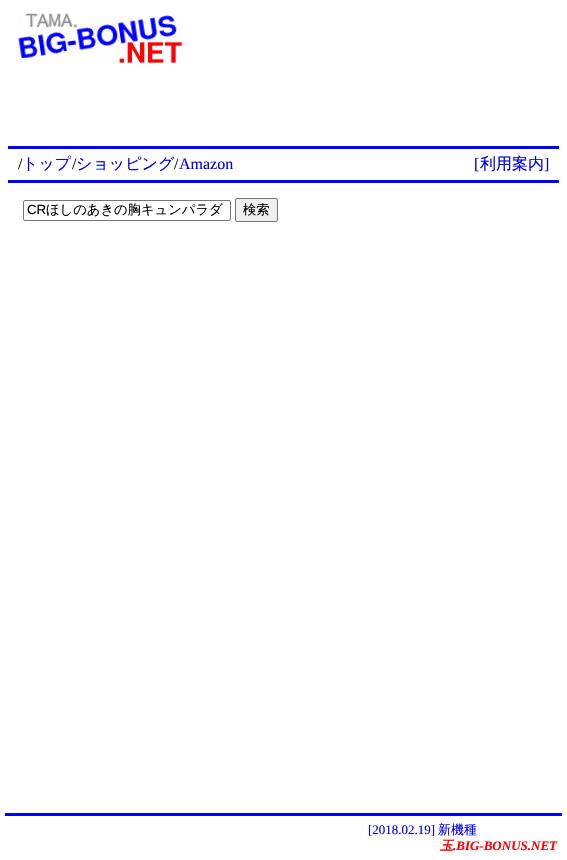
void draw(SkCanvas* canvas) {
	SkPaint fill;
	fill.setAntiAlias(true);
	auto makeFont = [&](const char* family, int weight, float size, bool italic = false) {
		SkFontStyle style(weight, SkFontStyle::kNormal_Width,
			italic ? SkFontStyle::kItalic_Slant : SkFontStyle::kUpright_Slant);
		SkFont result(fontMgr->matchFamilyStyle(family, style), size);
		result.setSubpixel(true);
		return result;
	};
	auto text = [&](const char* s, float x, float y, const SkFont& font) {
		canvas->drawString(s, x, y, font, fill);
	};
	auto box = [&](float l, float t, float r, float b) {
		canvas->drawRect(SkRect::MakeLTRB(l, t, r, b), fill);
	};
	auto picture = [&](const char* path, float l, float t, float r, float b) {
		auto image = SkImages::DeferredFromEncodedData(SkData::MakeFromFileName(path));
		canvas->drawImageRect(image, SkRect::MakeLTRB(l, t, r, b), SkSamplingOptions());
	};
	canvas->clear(0xFFFFFFFF);
	picture("image0.png", 18, 13, 182, 63);
	fill.setColor(0xFF0000FF);
	box(8, 146, 559, 149);
	box(8, 180, 559, 183);
	fill.setStyle(SkPaint::kStroke_Style);
	fill.setStrokeWidth(1);
	fill.setColor(0xFF767676);
	canvas->drawRoundRect(SkRect::MakeLTRB(23.5f, 200.5f, 230.5f, 220.5f), 1.5f, 1.5f, fill);
	fill.setStyle(SkPaint::kFill_Style);
	fill.setColor(0xFFEFEFEF);
	canvas->drawRoundRect(SkRect::MakeLTRB(235.5f, 198.5f, 277.5f, 221.5f), 1.5f, 1.5f, fill);
	fill.setStyle(SkPaint::kStroke_Style);
	fill.setColor(0xFF767676);
	canvas->drawRoundRect(SkRect::MakeLTRB(235.5f, 198.5f, 277.5f, 221.5f), 1.5f, 1.5f, fill);
	fill.setStyle(SkPaint::kFill_Style);
	fill.setColor(0xFF0000FF);
	box(5, 813, 562, 816);
	auto font1 = makeFont("Liberation Serif", 400, 16);
	fill.setColor(0xFF000000);
	text("/", 18, 169, font1);
	auto font2 = makeFont("WenQuanYi Zen Hei", 500, 16);
	fill.setColor(0xFF0000EE);
	text("トップ", 22, 169, font2);
	fill.setColor(0xFF000000);
	text("/", 72, 169, font1);
	fill.setColor(0xFF0000EE);
	text("ショッピング", 76, 169, font2);
	fill.setColor(0xFF000000);
	text("/", 174, 169, font1);
	fill.setColor(0xFF0000EE);
	text("Amazon", 179, 169, font1);
	text("[", 474, 169, font1);
	text("利用案内", 480, 169, font2);
	text("]", 544, 169, font1);
	auto font3 = makeFont("Liberation Sans", 400, 13.3f);
	fill.setColor(0xFF000000);
	text("CR", 27, 214, font3);
	auto font4 = makeFont("WenQuanYi Zen Hei", 500, 13.3f);
	text("ほしのあきの胸キュンパラダ", 46, 214, font4);
	text("検索", 243, 214, font4);
	auto font5 = makeFont("Liberation Serif", 400, 13);
	fill.setColor(0xFF0000EE);
	text("[2018.02.19]", 368, 834, font5);
	auto font6 = makeFont("WenQuanYi Zen Hei", 500, 13);
	text("新機種", 438, 834, font6);
	auto font7 = makeFont("WenQuanYi Zen Hei", 700, 13, true);
	fill.setColor(0xFFFF0000);
	text("玉", 440, 850, font7);
	auto font8 = makeFont("Liberation Serif", 700, 13, true);
	text(".BIG-BONUS.NET", 453, 850, font8);
}
